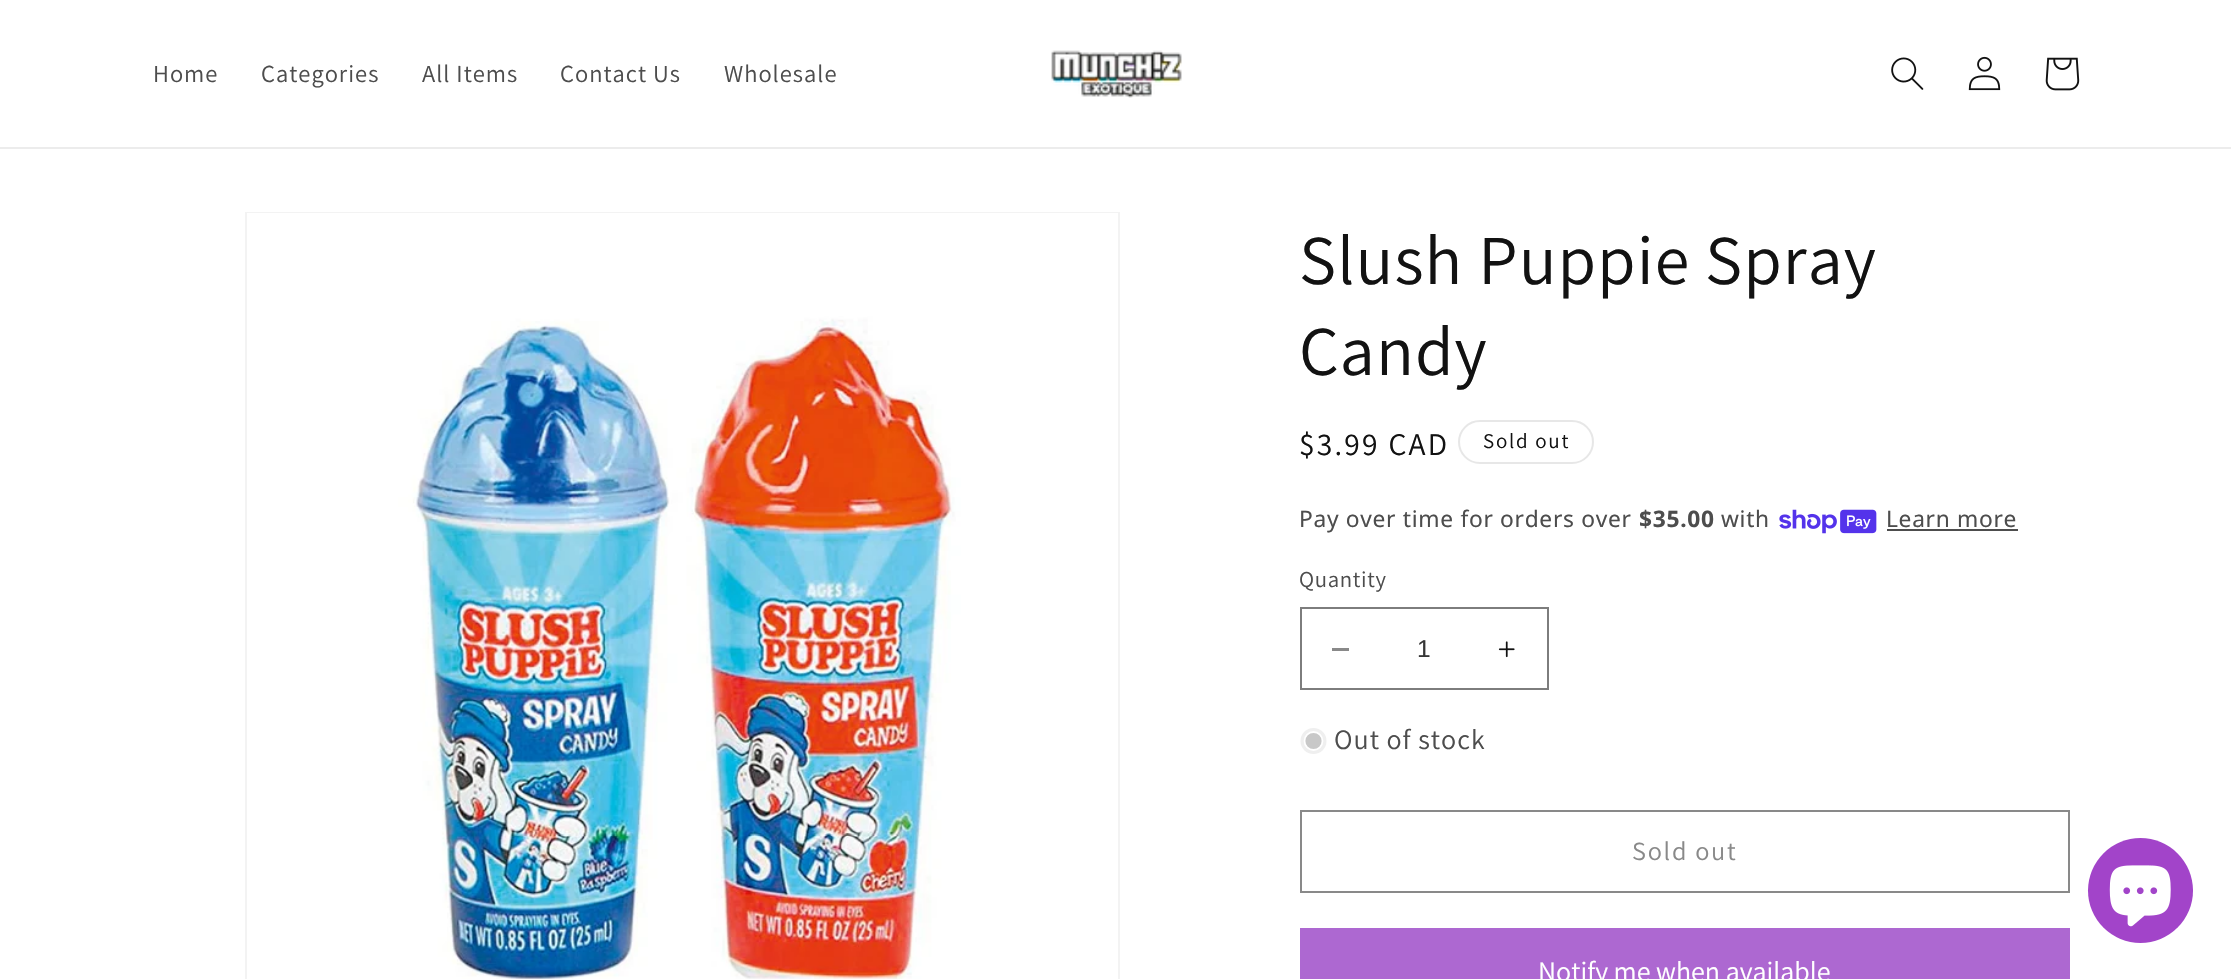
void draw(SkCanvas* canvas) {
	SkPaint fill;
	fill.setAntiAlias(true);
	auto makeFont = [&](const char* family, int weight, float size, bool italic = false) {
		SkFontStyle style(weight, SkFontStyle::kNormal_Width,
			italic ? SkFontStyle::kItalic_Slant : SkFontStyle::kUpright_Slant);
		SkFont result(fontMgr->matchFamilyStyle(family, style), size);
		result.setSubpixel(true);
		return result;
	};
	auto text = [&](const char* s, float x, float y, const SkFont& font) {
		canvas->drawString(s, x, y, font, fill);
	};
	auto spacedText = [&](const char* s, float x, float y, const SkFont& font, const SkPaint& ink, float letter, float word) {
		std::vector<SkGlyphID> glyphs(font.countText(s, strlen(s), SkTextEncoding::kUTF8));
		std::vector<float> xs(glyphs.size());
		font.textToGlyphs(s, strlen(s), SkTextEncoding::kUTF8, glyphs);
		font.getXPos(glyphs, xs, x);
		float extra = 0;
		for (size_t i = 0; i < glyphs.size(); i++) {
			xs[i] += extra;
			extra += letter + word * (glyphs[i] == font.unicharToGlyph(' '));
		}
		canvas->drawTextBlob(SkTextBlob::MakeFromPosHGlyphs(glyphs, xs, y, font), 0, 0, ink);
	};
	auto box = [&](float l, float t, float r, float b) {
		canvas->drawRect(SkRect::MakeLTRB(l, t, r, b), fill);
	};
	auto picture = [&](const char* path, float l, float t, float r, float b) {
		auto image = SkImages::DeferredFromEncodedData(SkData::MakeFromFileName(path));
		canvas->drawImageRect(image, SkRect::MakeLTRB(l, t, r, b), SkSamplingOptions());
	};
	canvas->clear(0xFFFFFFFF);
	fill.setColor(0xFFECECEC);
	box(0, 147, 2231, 149);
	picture("image0.png", 1051, 50, 1182, 98);
	picture("image1.png", 1891, 57, 1924, 90);
	picture("image2.png", 1968, 56, 2001, 91);
	picture("image3.png", 2045, 57, 2080, 91);
	fill.setStyle(SkPaint::kStroke_Style);
	fill.setStrokeWidth(2);
	fill.setColor(0xFFF3F3F3);
	canvas->drawRect(SkRect::MakeLTRB(246, 213, 1119, 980), fill);
	picture("image4.png", 247, 213, 1118, 979);
	fill.setColor(0xFFE7E7E7);
	canvas->drawRoundRect(SkRect::MakeLTRB(1459, 421, 1593, 463), 21, 21, fill);
	picture("image5.png", 1779, 509, 1877, 534);
	fill.setStyle(SkPaint::kFill_Style);
	fill.setColor(0xFF4D4D4D);
	box(1887, 529, 2018, 531);
	fill.setColor(0xFF898989);
	box(1332, 648, 1349, 651);
	picture("image6.png", 1498, 641, 1515, 658);
	fill.setStyle(SkPaint::kStroke_Style);
	fill.setColor(0xFF7D7D7D);
	canvas->drawRect(SkRect::MakeLTRB(1301, 608, 1548, 689), fill);
	fill.setStyle(SkPaint::kFill_Style);
	fill.setColor(0xFFEFEFEF);
	canvas->drawCircle(1313.5f, 741, 13, fill);
	fill.setColor(0xFFC8C8C8);
	canvas->drawCircle(1313.5f, 741, 9, fill);
	fill.setStyle(SkPaint::kStroke_Style);
	fill.setStrokeWidth(1.8f);
	fill.setColor(0xFFFFFFFF);
	canvas->drawCircle(1313.5f, 741, 9, fill);
	fill.setStrokeWidth(2);
	fill.setColor(0xFF898989);
	canvas->drawRect(SkRect::MakeLTRB(1301, 811, 2069, 892), fill);
	fill.setStyle(SkPaint::kFill_Style);
	fill.setColor(0xFFAD68D1);
	box(1300, 928, 2070, 979);
	fill.setColor(0xFFA244C9);
	canvas->drawCircle(2140.5f, 890.5f, 52.5f, fill);
	picture("image7.png", 2109, 865, 2171, 927);
	auto font1 = makeFont("Assistant", 400, 24.5f);
	fill.setColor(0xFF4D4D4D);
	spacedText("Home", 153, 82, font1, fill, 1, 0);
	spacedText("Categories", 261, 82, font1, fill, 1, 0);
	spacedText("All Items", 422, 82, font1, fill, 1, 0);
	spacedText("Contact Us", 560, 82, font1, fill, 1, 0);
	spacedText("Wholesale", 724, 82, font1, fill, 1, 0);
	auto font2 = makeFont("Assistant", 400, 70);
	fill.setColor(0xFF121212);
	spacedText("Slush Puppie Spray", 1299, 284, font2, fill, 1, 0);
	spacedText("Candy", 1299, 375, font2, fill, 1, 0);
	auto font3 = makeFont("Assistant", 400, 31.5f);
	spacedText("$3.99 CAD", 1299, 455, font3, fill, 2.25f, 0);
	auto font4 = makeFont("Assistant", 400, 21);
	spacedText("Sold out", 1483, 448, font4, fill, 1.75f, 0);
	auto font5 = makeFont("Noto Sans", 400, 22.75f);
	fill.setColor(0xFF4D4D4D);
	spacedText("Pay over time for orders over", 1299, 527, font5, fill, 0.7f, 0);
	auto font6 = makeFont("Noto Sans", 700, 22.75f);
	spacedText("$35.00", 1639, 527, font6, fill, 0.7f, 0);
	spacedText("with", 1721, 527, font5, fill, 0.7f, 0);
	spacedText("Learn more", 1886, 527, font5, fill, 0.7f, 0);
	auto font7 = makeFont("Assistant", 400, 22.75f);
	spacedText("Quantity", 1299, 587, font7, fill, 0.7f, 0);
	auto font8 = makeFont("Liberation Sans", 400, 24.5f);
	fill.setColor(0xFF363636);
	text("1", 1417, 657, font8);
	auto font9 = makeFont("Assistant", 400, 28);
	fill.setColor(0xFF4D4D4D);
	spacedText("Out of stock", 1334, 749, font9, fill, 1, 0);
	auto font10 = makeFont("Assistant", 400, 26.25f);
	fill.setColor(0xFF898989);
	spacedText("Sold out", 1632, 860, font10, fill, 1.75f, 0);
	fill.setColor(0xFFFFFFFF);
	text("Notify me when available", 1538, 981, font9);
}
